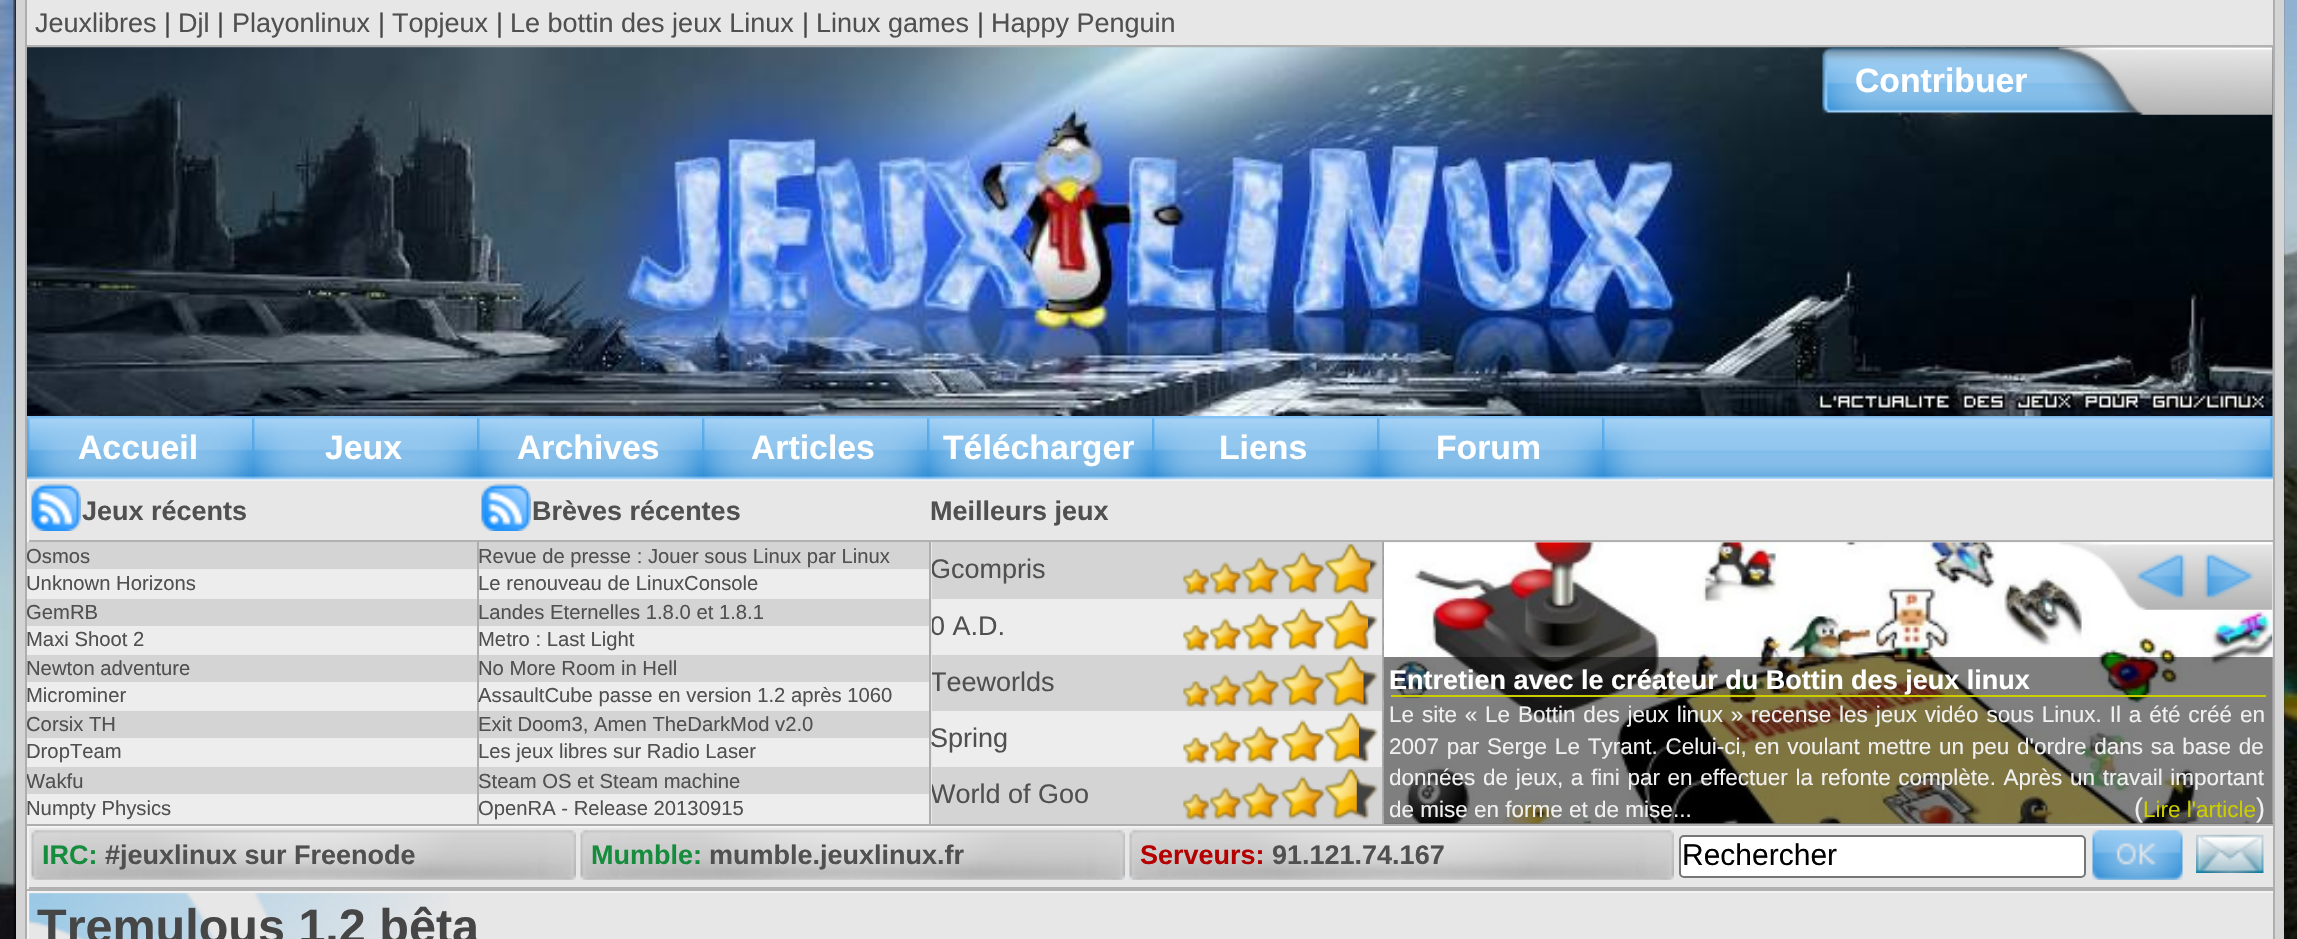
void draw(SkCanvas* canvas) {
	SkPaint fill;
	fill.setAntiAlias(true);
	auto makeFont = [&](const char* family, int weight, float size, bool italic = false) {
		SkFontStyle style(weight, SkFontStyle::kNormal_Width,
			italic ? SkFontStyle::kItalic_Slant : SkFontStyle::kUpright_Slant);
		SkFont result(fontMgr->matchFamilyStyle(family, style), size);
		result.setSubpixel(true);
		return result;
	};
	auto text = [&](const char* s, float x, float y, const SkFont& font) {
		canvas->drawString(s, x, y, font, fill);
	};
	auto spacedText = [&](const char* s, float x, float y, const SkFont& font, const SkPaint& ink, float letter, float word) {
		std::vector<SkGlyphID> glyphs(font.countText(s, strlen(s), SkTextEncoding::kUTF8));
		std::vector<float> xs(glyphs.size());
		font.textToGlyphs(s, strlen(s), SkTextEncoding::kUTF8, glyphs);
		font.getXPos(glyphs, xs, x);
		float extra = 0;
		for (size_t i = 0; i < glyphs.size(); i++) {
			xs[i] += extra;
			extra += letter + word * (glyphs[i] == font.unicharToGlyph(' '));
		}
		canvas->drawTextBlob(SkTextBlob::MakeFromPosHGlyphs(glyphs, xs, y, font), 0, 0, ink);
	};
	auto box = [&](float l, float t, float r, float b) {
		canvas->drawRect(SkRect::MakeLTRB(l, t, r, b), fill);
	};
	auto picture = [&](const char* path, float l, float t, float r, float b) {
		auto image = SkImages::DeferredFromEncodedData(SkData::MakeFromFileName(path));
		canvas->drawImageRect(image, SkRect::MakeLTRB(l, t, r, b), SkSamplingOptions());
	};
	canvas->clear(0xFFFFFFFF);
	picture("image0.png", 0, 0, 2297, 939);
	fill.setColor(0xFFB1B1B1);
	box(27, 45, 2273, 479);
	fill.setColor(0xFFD4D4D4);
	box(2275, 0, 2284, 939);
	box(16, 0, 25, 939);
	fill.setColor(0xFFAEAEAE);
	box(2273, 0, 2275, 939);
	box(25, 0, 27, 939);
	fill.setColor(0xFFE7E7E7);
	box(27, 0, 2273, 45);
	picture("image1.png", 27, 47, 2273, 417);
	picture("image2.png", 1822, 47, 2273, 115);
	picture("image3.png", 27, 416, 2273, 479);
	fill.setColor(0xFFF3F3F3);
	box(27, 479, 2273, 481);
	fill.setColor(0xFFB1B1B1);
	box(27, 540, 2273, 542);
	fill.setColor(0xFFF3F3F3);
	box(27, 479, 29, 542);
	picture("image4.png", 27, 416, 252, 480);
	picture("image5.png", 252, 416, 477, 480);
	picture("image6.png", 477, 416, 702, 480);
	picture("image7.png", 702, 416, 927, 480);
	picture("image8.png", 927, 416, 1152, 480);
	picture("image9.png", 1152, 416, 1377, 480);
	picture("image10.png", 1377, 416, 1602, 480);
	picture("image11.png", 1602, 416, 1659, 480);
	picture("image12.png", 2216, 416, 2273, 480);
	fill.setColor(0xFFE7E7E7);
	box(29, 481, 2273, 540);
	picture("image13.png", 31, 483, 81, 531);
	picture("image13.png", 481, 483, 531, 531);
	box(931, 542, 2273, 824);
	fill.setColor(0xFFAEAEAE);
	box(27, 824, 2273, 826);
	box(477, 542, 479, 826);
	fill.setColor(0xFFD4D4D4);
	box(27, 542, 477, 569);
	fill.setColor(0xFFEDEDED);
	box(27, 569, 477, 599);
	fill.setColor(0xFFD4D4D4);
	box(27, 599, 477, 626);
	fill.setColor(0xFFEDEDED);
	box(27, 626, 477, 655);
	fill.setColor(0xFFD4D4D4);
	box(27, 655, 477, 682);
	fill.setColor(0xFFEDEDED);
	box(27, 682, 477, 711);
	fill.setColor(0xFFD4D4D4);
	box(27, 711, 477, 738);
	fill.setColor(0xFFEDEDED);
	box(27, 738, 477, 767);
	fill.setColor(0xFFD4D4D4);
	box(27, 767, 477, 794);
	fill.setColor(0xFFEDEDED);
	box(27, 794, 477, 824);
	fill.setColor(0xFFAEAEAE);
	box(929, 542, 931, 826);
	fill.setColor(0xFFD4D4D4);
	box(479, 542, 929, 569);
	fill.setColor(0xFFEDEDED);
	box(479, 569, 929, 599);
	fill.setColor(0xFFD4D4D4);
	box(479, 599, 929, 626);
	fill.setColor(0xFFEDEDED);
	box(479, 626, 929, 655);
	fill.setColor(0xFFD4D4D4);
	box(479, 655, 929, 682);
	fill.setColor(0xFFEDEDED);
	box(479, 682, 929, 711);
	fill.setColor(0xFFD4D4D4);
	box(479, 711, 929, 738);
	fill.setColor(0xFFEDEDED);
	box(479, 738, 929, 767);
	fill.setColor(0xFFD4D4D4);
	box(479, 767, 929, 794);
	fill.setColor(0xFFEDEDED);
	box(479, 794, 929, 824);
	fill.setColor(0xFFAEAEAE);
	box(1382, 542, 1384, 826);
	fill.setColor(0xFFD4D4D4);
	box(932, 542, 1382, 599);
	picture("image14.png", 1183, 543, 1378, 595);
	picture("image15.png", 1183, 544, 1371, 595);
	fill.setColor(0xFFEDEDED);
	box(932, 599, 1382, 655);
	picture("image16.png", 1183, 599, 1378, 651);
	picture("image17.png", 1183, 600, 1368, 651);
	fill.setColor(0xFFD4D4D4);
	box(932, 655, 1382, 711);
	picture("image18.png", 1183, 655, 1378, 708);
	picture("image19.png", 1183, 656, 1364, 708);
	fill.setColor(0xFFEDEDED);
	box(932, 711, 1382, 767);
	picture("image20.png", 1183, 711, 1378, 764);
	picture("image21.png", 1183, 712, 1359, 764);
	fill.setColor(0xFFD4D4D4);
	box(932, 767, 1382, 824);
	picture("image14.png", 1183, 768, 1378, 820);
	picture("image22.png", 1183, 769, 1357, 820);
	picture("image26.png", 1383, 542, 1384, 823);
	picture("image27.png", 1383, 542, 2273, 824);
	picture("image23.png", 2059, 542, 2273, 610);
	picture("image24.png", 2136, 553, 2187, 600);
	picture("image25.png", 2203, 553, 2254, 600);
	fill.setColor(0x80000000);
	box(1384, 657, 2273, 824);
	fill.setColor(0xFFCCCC00);
	box(1391, 695, 2266, 697);
	picture("image28.png", 2272, 612, 2273, 824);
	fill.setColor(0xFFE7E7E7);
	box(29, 828, 2273, 887);
	fill.setColor(0xFFF3F3F3);
	box(27, 826, 2273, 828);
	fill.setColor(0xFFB1B1B1);
	box(27, 887, 2273, 891);
	fill.setColor(0xFFF3F3F3);
	box(27, 826, 29, 889);
	picture("image29.png", 31, 830, 576, 880);
	picture("image30.png", 580, 830, 1125, 880);
	picture("image31.png", 1129, 830, 1674, 880);
	fill.setColor(0xFFFFFFFF);
	canvas->drawRoundRect(SkRect::MakeLTRB(1680, 836, 2085, 877), 4, 4, fill);
	fill.setStyle(SkPaint::kStroke_Style);
	fill.setStrokeWidth(2);
	fill.setColor(0xFF767676);
	canvas->drawRoundRect(SkRect::MakeLTRB(1680, 836, 2085, 877), 4, 4, fill);
	picture("image32.png", 2092, 830, 2183, 880);
	picture("image33.png", 2196, 834, 2264, 873);
	fill.setStyle(SkPaint::kFill_Style);
	fill.setColor(0xFFE7E7E7);
	box(29, 893, 2273, 939);
	picture("image34.png", 29, 893, 449, 939);
	fill.setColor(0xFFF3F3F3);
	box(27, 891, 2273, 893);
	box(27, 891, 29, 939);
	auto font1 = makeFont("Liberation Sans", 400, 27);
	fill.setColor(0xFF505050);
	text("Jeuxlibres", 35, 32, font1);
	fill.setColor(0xFF464646);
	text("|", 164, 32, font1);
	fill.setColor(0xFF505050);
	text("Djl", 178, 32, font1);
	fill.setColor(0xFF464646);
	text("|", 217, 32, font1);
	fill.setColor(0xFF505050);
	text("Playonlinux", 232, 32, font1);
	fill.setColor(0xFF464646);
	text("|", 378, 32, font1);
	fill.setColor(0xFF505050);
	text("Topjeux", 392, 32, font1);
	fill.setColor(0xFF464646);
	text("|", 496, 32, font1);
	fill.setColor(0xFF505050);
	text("Le bottin des jeux Linux", 510, 32, font1);
	fill.setColor(0xFF464646);
	text("|", 802, 32, font1);
	fill.setColor(0xFF505050);
	text("Linux games", 816, 32, font1);
	fill.setColor(0xFF464646);
	text("|", 977, 32, font1);
	fill.setColor(0xFF505050);
	text("Happy Penguin", 991, 32, font1);
	auto font2 = makeFont("Liberation Sans", 700, 33.75f);
	fill.setColor(0xFFFFFFFF);
	text("Contribuer", 1855, 92, font2);
	text("Accueil", 78, 459, font2);
	text("Jeux", 325, 459, font2);
	text("Archives", 517, 459, font2);
	text("Articles", 751, 459, font2);
	text("Télécharger", 943, 459, font2);
	text("Liens", 1219, 459, font2);
	text("Forum", 1436, 459, font2);
	auto font3 = makeFont("Liberation Sans", 700, 27);
	fill.setColor(0xFF505050);
	text("Jeux récents", 82, 520, font3);
	text("Brèves récentes", 532, 520, font3);
	text("Meilleurs jeux", 930, 520, font3);
	auto font4 = makeFont("Liberation Sans", 400, 20.25f);
	text("Osmos", 26, 563, font4);
	text("Unknown Horizons", 26, 590, font4);
	text("GemRB", 26, 619, font4);
	text("Maxi Shoot 2", 26, 646, font4);
	text("Newton adventure", 26, 675, font4);
	text("Microminer", 26, 702, font4);
	text("Corsix TH", 26, 731, font4);
	text("DropTeam", 26, 758, font4);
	canvas->save();
	canvas->clipRect(SkRect::MakeLTRB(27, 767, 477, 794));
	text("Wakfu", 26, 788, font4);
	canvas->restore();
	text("Numpty Physics", 26, 815, font4);
	text("Revue de presse : Jouer sous Linux par Linux", 478, 563, font4);
	text("Le renouveau de LinuxConsole", 478, 590, font4);
	text("Landes Eternelles 1.8.0 et 1.8.1", 478, 619, font4);
	text("Metro : Last Light", 478, 646, font4);
	text("No More Room in Hell", 478, 675, font4);
	text("AssaultCube passe en version 1.2 après 1060", 478, 702, font4);
	text("Exit Doom3, Amen TheDarkMod v2.0", 478, 731, font4);
	text("Les jeux libres sur Radio Laser", 478, 758, font4);
	text("Steam OS et Steam machine", 478, 788, font4);
	text("OpenRA - Release 20130915", 478, 815, font4);
	canvas->save();
	canvas->clipRect(SkRect::MakeLTRB(932, 542, 1157, 599));
	text("Gcompris", 930, 578, font1);
	canvas->restore();
	canvas->save();
	canvas->clipRect(SkRect::MakeLTRB(932, 599, 1157, 655));
	text("0 A.D.", 930, 635, font1);
	canvas->restore();
	canvas->save();
	canvas->clipRect(SkRect::MakeLTRB(932, 655, 1157, 711));
	text("Teeworlds", 930, 691, font1);
	canvas->restore();
	text("Spring", 930, 747, font1);
	canvas->save();
	canvas->clipRect(SkRect::MakeLTRB(932, 767, 1157, 824));
	text("World of Goo", 930, 803, font1);
	canvas->restore();
	fill.setColor(0xFFFFFFFF);
	text("Entretien avec le créateur du Bottin des jeux linux", 1389, 689, font3);
	auto font5 = makeFont("Liberation Sans", 400, 22.5f);
	fill.setColor(0xFFF0F0F0);
	spacedText("Le site « Le Bottin des jeux linux » recense les jeux vidéo sous Linux. Il a été créé en", 1389, 722, font5, fill, 0, 1.6f);
	spacedText("2007 par Serge Le Tyrant. Celui-ci, en voulant mettre un peu d'ordre dans sa base de", 1389, 754, font5, fill, 0, 1.5f);
	spacedText("données de jeux, a fini par en effectuer la refonte complète. Après un travail important", 1389, 785, font5, fill, 0, 1.4f);
	text("de mise en forme et de mise...", 1389, 817, font5);
	text("(", 2134, 817, font1);
	fill.setColor(0xFFCCCC00);
	text("Lire l'article", 2143, 817, font5);
	fill.setColor(0xFFF0F0F0);
	text(")", 2256, 817, font1);
	fill.setColor(0xFF168C3D);
	text("IRC:", 42, 864, font3);
	fill.setColor(0xFF505050);
	text("#jeuxlinux sur Freenode", 105, 864, font3);
	fill.setColor(0xFF168C3D);
	text("Mumble:", 591, 864, font3);
	fill.setColor(0xFF505050);
	text("mumble.jeuxlinux.fr", 709, 864, font3);
	fill.setColor(0xFFB50000);
	text("Serveurs:", 1140, 864, font3);
	fill.setColor(0xFF505050);
	text("91.121.74.167", 1272, 864, font3);
	auto font6 = makeFont("Liberation Sans", 400, 30);
	fill.setColor(0xFF000000);
	text("Rechercher", 1682, 865, font6);
	auto font7 = makeFont("Liberation Sans", 700, 48.5f);
	fill.setColor(0xFF464646);
	text("Tremulous 1.2 bêta", 37, 943, font7);
}
